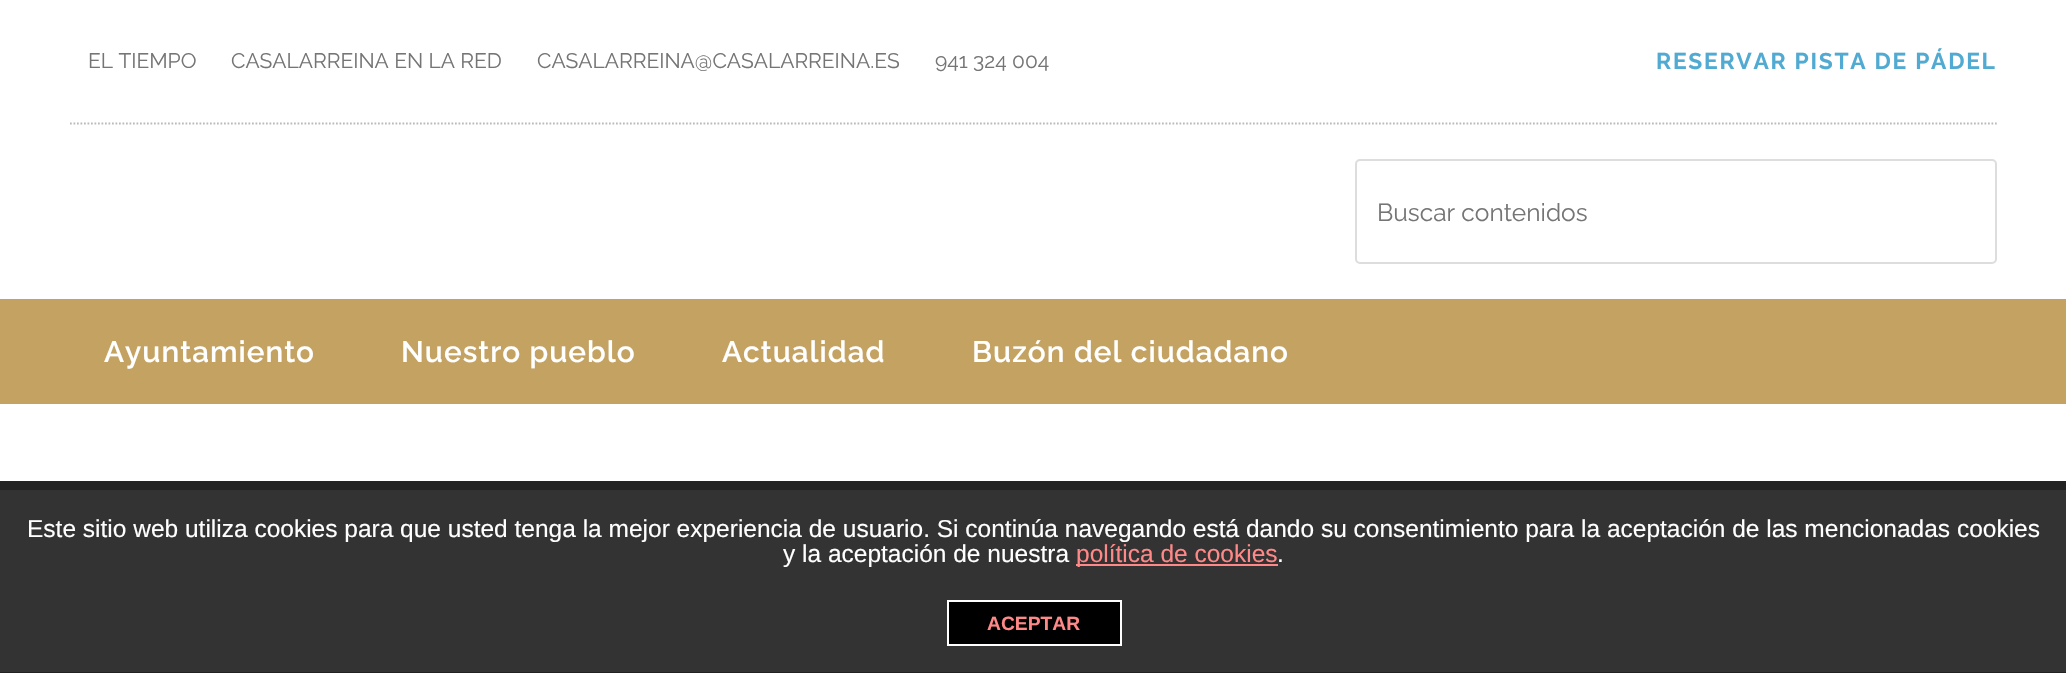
void draw(SkCanvas* canvas) {
	SkPaint fill;
	fill.setAntiAlias(true);
	auto makeFont = [&](const char* family, int weight, float size, bool italic = false) {
		SkFontStyle style(weight, SkFontStyle::kNormal_Width,
			italic ? SkFontStyle::kItalic_Slant : SkFontStyle::kUpright_Slant);
		SkFont result(fontMgr->matchFamilyStyle(family, style), size);
		result.setSubpixel(true);
		return result;
	};
	auto text = [&](const char* s, float x, float y, const SkFont& font) {
		canvas->drawString(s, x, y, font, fill);
	};
	auto spacedText = [&](const char* s, float x, float y, const SkFont& font, const SkPaint& ink, float letter, float word) {
		std::vector<SkGlyphID> glyphs(font.countText(s, strlen(s), SkTextEncoding::kUTF8));
		std::vector<float> xs(glyphs.size());
		font.textToGlyphs(s, strlen(s), SkTextEncoding::kUTF8, glyphs);
		font.getXPos(glyphs, xs, x);
		float extra = 0;
		for (size_t i = 0; i < glyphs.size(); i++) {
			xs[i] += extra;
			extra += letter + word * (glyphs[i] == font.unicharToGlyph(' '));
		}
		canvas->drawTextBlob(SkTextBlob::MakeFromPosHGlyphs(glyphs, xs, y, font), 0, 0, ink);
	};
	auto box = [&](float l, float t, float r, float b) {
		canvas->drawRect(SkRect::MakeLTRB(l, t, r, b), fill);
	};
	canvas->clear(0xFFFFFFFF);
	fill.setStyle(SkPaint::kStroke_Style);
	fill.setStrokeWidth(1.8f);
	fill.setColor(0xFFBABABA);
	fill.setPathEffect(SkDashPathEffect::Make({{1.75f, 1.75f}}, 0));
	canvas->drawPath(SkPathBuilder().moveTo(70, 123.5f).lineTo(1997, 123.5f).detach(), fill);
	fill.setPathEffect(nullptr);
	fill.setStrokeWidth(2);
	fill.setColor(0xFFDDDDDD);
	canvas->drawRoundRect(SkRect::MakeLTRB(1356, 160, 1996, 263), 4, 4, fill);
	fill.setStyle(SkPaint::kFill_Style);
	fill.setColor(0xFFC3A262);
	box(0, 299, 2066, 404);
	fill.setColor(0xFF333333);
	box(0, 490, 2066, 672);
	fill.setColor(0xFF222222);
	box(0, 481, 2066, 490);
	box(0, 672, 2066, 673);
	fill.setColor(0xFFFF8888);
	box(1076, 564, 1278, 566);
	fill.setColor(0xFF000000);
	canvas->drawRect(SkRect::MakeLTRB(948, 601, 1121, 645), fill);
	fill.setStyle(SkPaint::kStroke_Style);
	fill.setColor(0xFFFFFFFF);
	canvas->drawRect(SkRect::MakeLTRB(948, 601, 1121, 645), fill);
	auto font1 = makeFont("Raleway", 400, 21);
	fill.setStyle(SkPaint::kFill_Style);
	fill.setColor(0xFF757575);
	text("EL TIEMPO", 88, 68, font1);
	text("CASALARREINA EN LA RED", 231, 68, font1);
	text("CASALARREINA@CASALARREINA.ES", 537, 68, font1);
	text("941 324 004", 935, 68, font1);
	auto font2 = makeFont("Raleway", 700, 22.75f);
	fill.setColor(0xFF51AAD1);
	spacedText("RESERVAR PISTA DE PÁDEL", 1656, 69, font2, fill, 1.75f, 0);
	auto font3 = makeFont("Raleway", 400, 24.5f);
	fill.setColor(0xFF757575);
	text("Buscar contenidos", 1377, 221, font3);
	auto font4 = makeFont("Raleway", 600, 29.75f);
	fill.setColor(0xFFFFFFFF);
	spacedText("Ayuntamiento", 104, 362, font4, fill, 1, 0);
	spacedText("Nuestro pueblo", 401, 362, font4, fill, 1, 0);
	spacedText("Actualidad", 722, 362, font4, fill, 1, 0);
	spacedText("Buzón del ciudadano", 972, 362, font4, fill, 1, 0);
	auto font5 = makeFont("Liberation Sans", 400, 24.5f);
	text("Este sitio web utiliza cookies para que usted tenga la mejor experiencia de usuario. Si continúa navegando está dando su consentimiento para la aceptación de las mencionadas cookies", 27, 537, font5);
	text("y la aceptación de nuestra", 783, 562, font5);
	fill.setColor(0xFFFF8888);
	text("política de cookies", 1076, 562, font5);
	fill.setColor(0xFFFFFFFF);
	text(".", 1277, 562, font5);
	auto font6 = makeFont("Liberation Sans", 700, 19.25f);
	fill.setColor(0xFFFF8888);
	text("ACEPTAR", 987, 630, font6);
}
